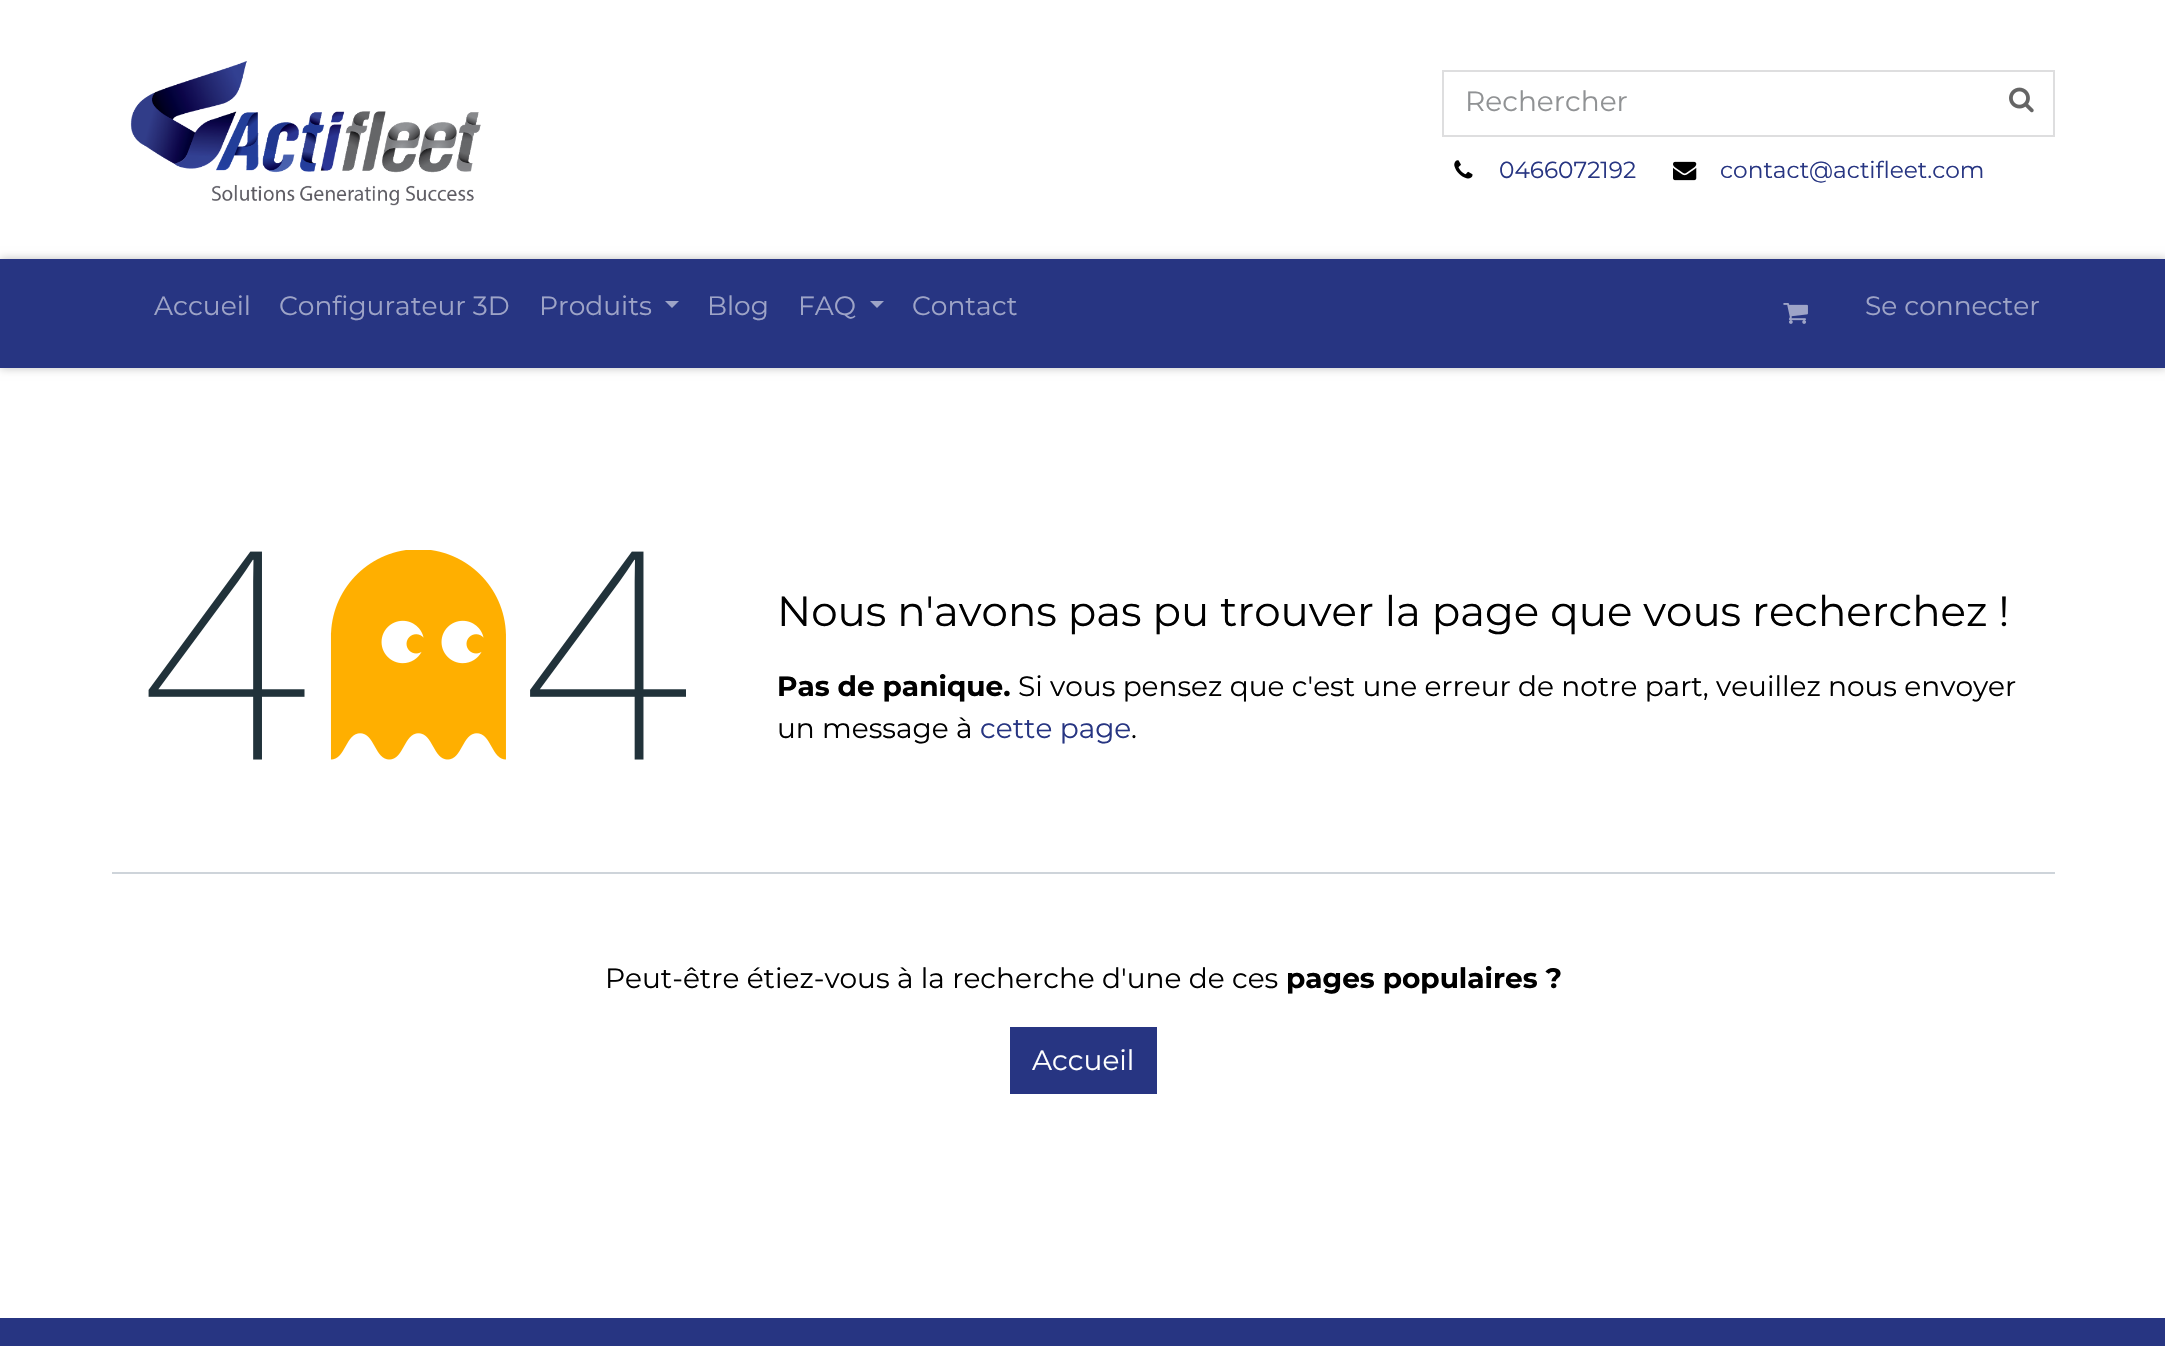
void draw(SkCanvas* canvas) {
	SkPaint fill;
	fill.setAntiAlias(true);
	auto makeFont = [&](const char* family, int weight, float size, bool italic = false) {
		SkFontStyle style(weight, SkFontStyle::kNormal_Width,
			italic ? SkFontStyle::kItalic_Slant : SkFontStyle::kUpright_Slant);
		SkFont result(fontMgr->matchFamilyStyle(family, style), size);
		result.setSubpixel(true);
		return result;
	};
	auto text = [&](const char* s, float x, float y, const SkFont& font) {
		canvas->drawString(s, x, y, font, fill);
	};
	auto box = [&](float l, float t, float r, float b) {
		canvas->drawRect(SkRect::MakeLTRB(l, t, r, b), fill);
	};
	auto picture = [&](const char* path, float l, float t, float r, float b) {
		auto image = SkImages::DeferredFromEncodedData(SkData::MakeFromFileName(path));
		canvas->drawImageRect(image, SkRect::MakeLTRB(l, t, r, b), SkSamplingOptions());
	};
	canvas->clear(0xFFFFFFFF);
	picture("image0.png", 130, 61, 481, 206);
	fill.setStyle(SkPaint::kStroke_Style);
	fill.setStrokeWidth(2);
	fill.setColor(0xFFDEDEDF);
	canvas->drawRect(SkRect::MakeLTRB(1443, 71, 2054, 136), fill);
	picture("image1.png", 2009, 87, 2034, 113);
	picture("image2.png", 1454, 160, 1473, 179);
	picture("image3.png", 1673, 161, 1697, 181);
	fill.setStyle(SkPaint::kFill_Style);
	fill.setColor(0x40000000);
	fill.setMaskFilter(SkMaskFilter::MakeBlur(kNormal_SkBlurStyle, 4.5f));
	canvas->drawRect(SkRect::MakeLTRB(0, 259, 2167, 368), fill);
	fill.setMaskFilter(nullptr);
	fill.setColor(0xFF273582);
	box(0, 259, 2165, 368);
	fill.setColor(0xFF9EA4C7);
	canvas->drawPath(SkPathBuilder().moveTo(665, 301).lineTo(679, 301).lineTo(672, 308).close().detach(), fill);
	canvas->drawPath(SkPathBuilder().moveTo(870, 301).lineTo(884, 301).lineTo(877, 308).close().detach(), fill);
	picture("image4.png", 1783, 303, 1808, 324);
	picture("image5.png", 148, 550, 686, 760);
	fill.setColor(0xFFCED4DA);
	box(112, 872, 2055, 874);
	fill.setColor(0xFF273582);
	box(1010, 1027, 1157, 1094);
	box(0, 1318, 2165, 1346);
	auto font1 = makeFont("Montserrat", 400, 28);
	fill.setColor(0xFF909294);
	text("Rechercher", 1465, 111, font1);
	auto font2 = makeFont("Montserrat", 400, 23.25f);
	fill.setColor(0xFF273582);
	text("0466072192", 1499, 178, font2);
	text("contact@actifleet.com", 1720, 178, font2);
	auto font3 = makeFont("Montserrat", 400, 26.5f);
	fill.setColor(0xFF9EA4C7);
	text("Accueil", 154, 315, font3);
	text("Configurateur 3D", 279, 315, font3);
	text("Produits", 539, 315, font3);
	text("Blog", 707, 315, font3);
	text("FAQ", 798, 315, font3);
	text("Contact", 912, 315, font3);
	text("Se connecter", 1865, 315, font3);
	auto font4 = makeFont("Montserrat", 400, 42);
	fill.setColor(0xFF000000);
	text("Nous n'avons pas pu trouver la page que vous recherchez !", 777, 626, font4);
	auto font5 = makeFont("Montserrat", 700, 28);
	text("Pas de panique.", 777, 696, font5);
	text("Si vous pensez que c'est une erreur de notre part, veuillez nous envoyer", 1018, 696, font1);
	text("un message à", 777, 738, font1);
	fill.setColor(0xFF273582);
	text("cette page", 980, 738, font1);
	fill.setColor(0xFF000000);
	text(".", 1131, 738, font1);
	text("Peut-être étiez-vous à la recherche d'une de ces", 605, 988, font1);
	text("pages populaires ?", 1286, 988, font5);
	fill.setColor(0xFFFFFFFF);
	text("Accueil", 1032, 1070, font1);
}
